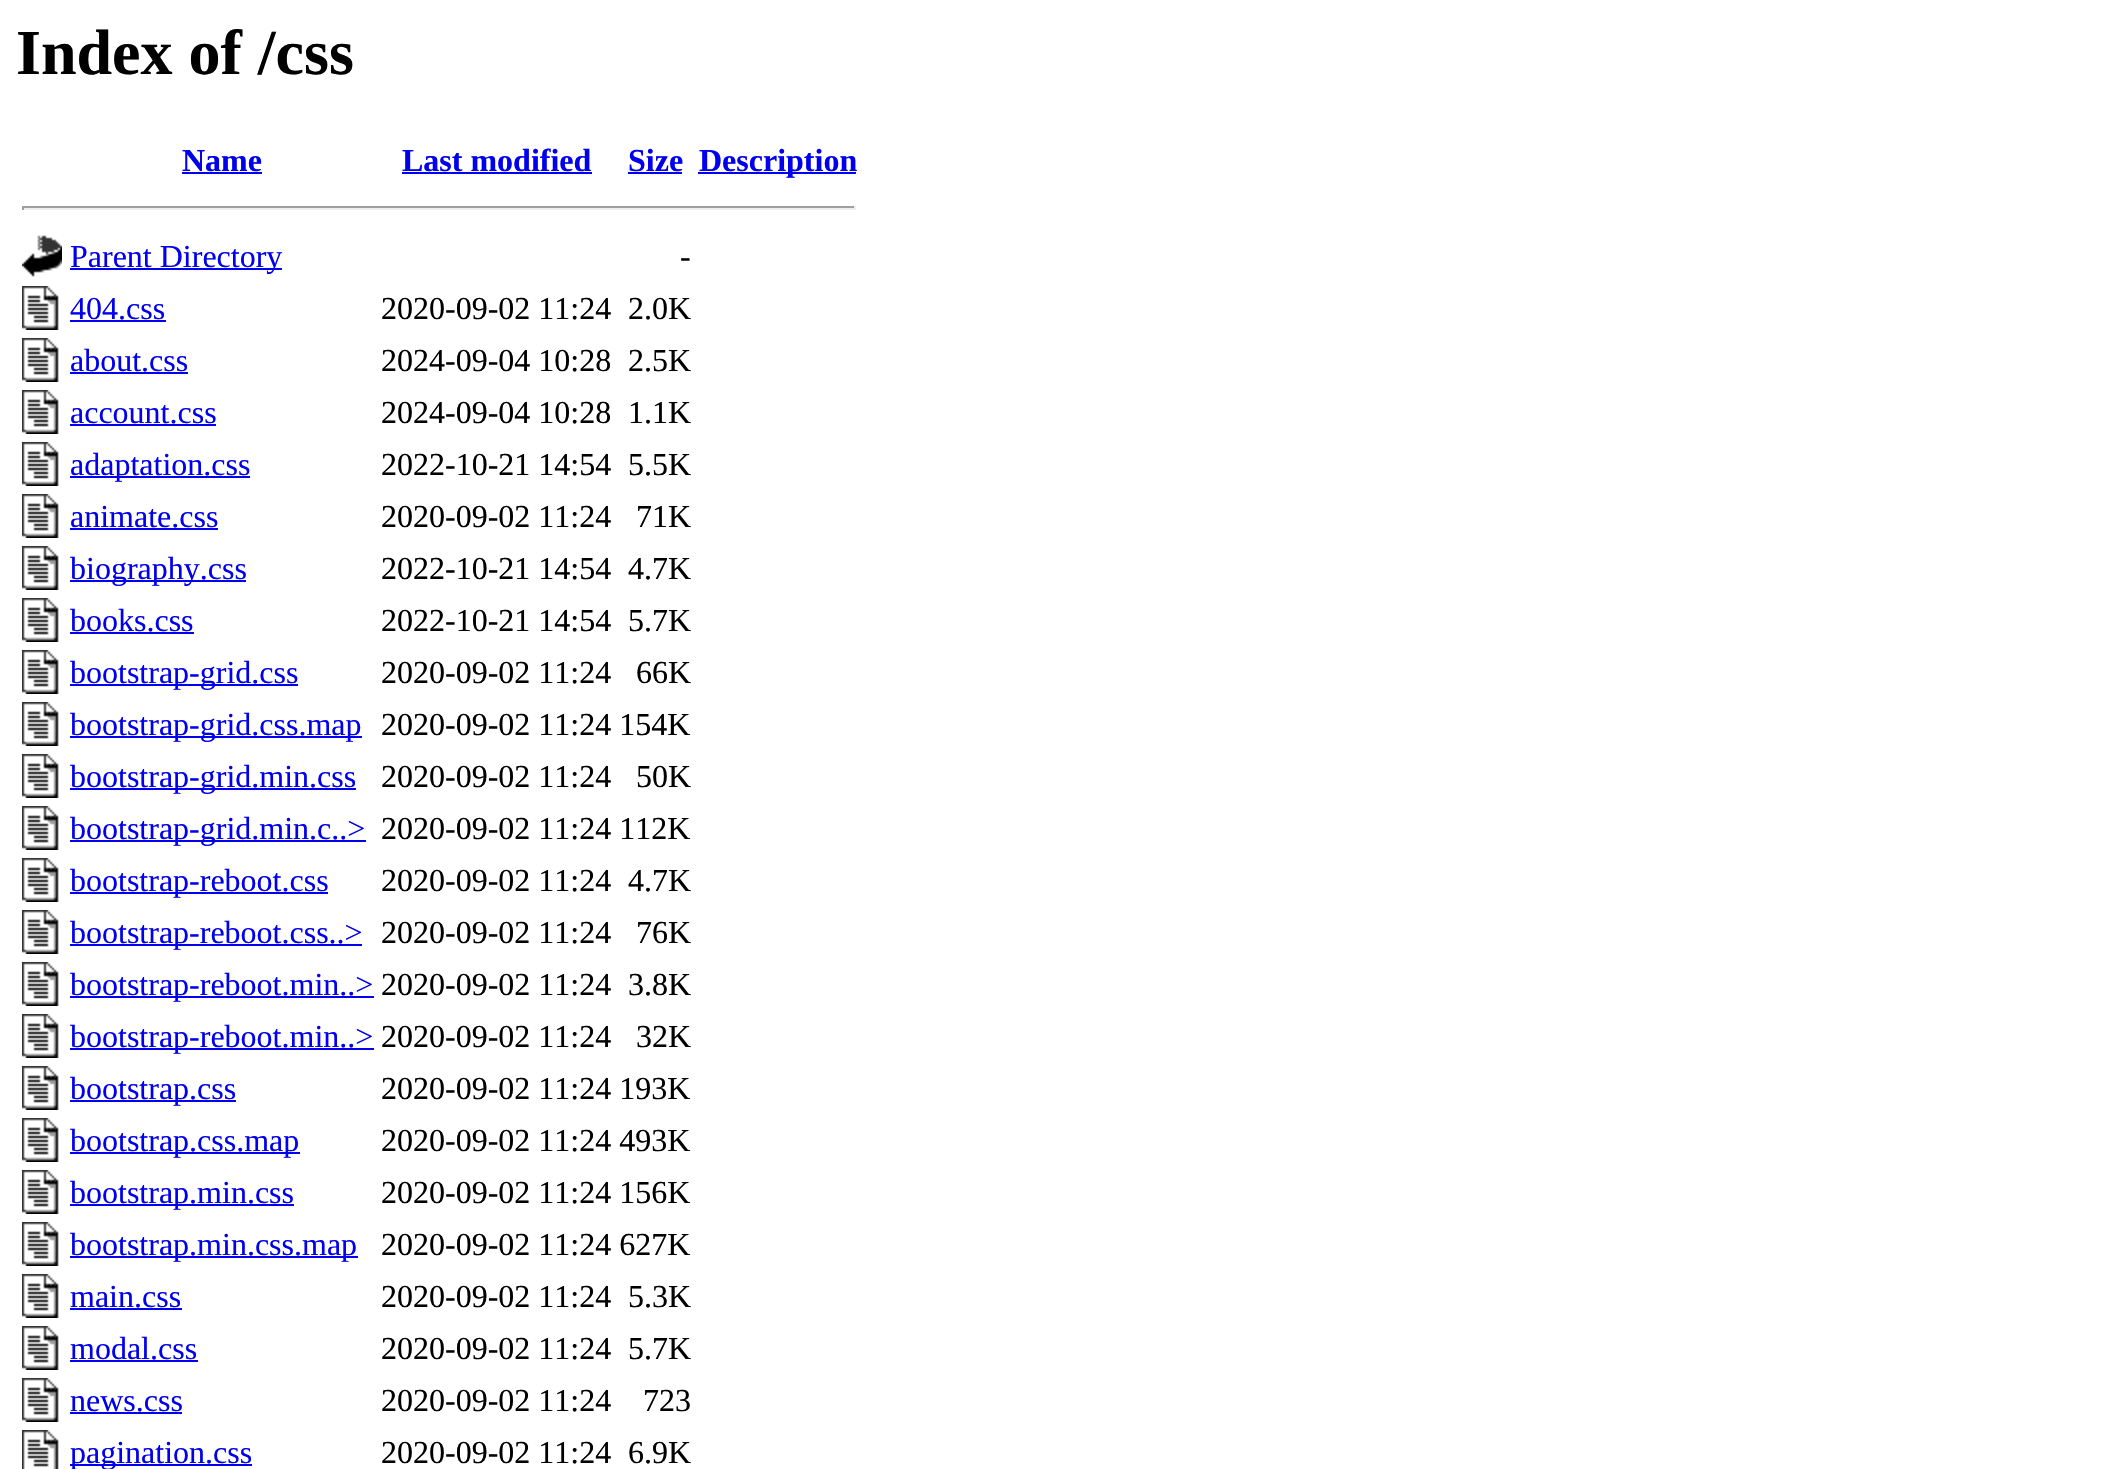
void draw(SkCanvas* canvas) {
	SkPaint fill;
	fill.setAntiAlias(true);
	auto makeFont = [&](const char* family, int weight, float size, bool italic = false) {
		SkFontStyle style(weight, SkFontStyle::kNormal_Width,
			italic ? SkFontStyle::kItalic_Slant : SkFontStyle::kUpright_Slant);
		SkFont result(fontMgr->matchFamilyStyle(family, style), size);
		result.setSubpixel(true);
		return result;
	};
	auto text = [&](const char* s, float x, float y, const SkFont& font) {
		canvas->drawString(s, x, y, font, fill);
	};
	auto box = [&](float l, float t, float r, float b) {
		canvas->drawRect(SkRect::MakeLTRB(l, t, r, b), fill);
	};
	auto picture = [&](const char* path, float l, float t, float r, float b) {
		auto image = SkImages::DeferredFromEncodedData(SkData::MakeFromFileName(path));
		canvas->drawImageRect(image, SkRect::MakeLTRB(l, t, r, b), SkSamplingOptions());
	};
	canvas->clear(0xFFFFFFFF);
	fill.setColor(0xFF0000EE);
	box(182, 172, 262, 174);
	box(402, 172, 592, 174);
	box(628, 172, 682, 174);
	box(698, 172, 856, 174);
	fill.setColor(0xFF9F9F9F);
	box(22, 206, 856, 208);
	fill.setColor(0xFFEEEEEE);
	box(854, 206, 856, 210);
	box(22, 208, 856, 210);
	fill.setColor(0xFF9F9F9F);
	box(22, 206, 24, 210);
	picture("image0.png", 22, 235, 62, 277);
	fill.setColor(0xFF0000EE);
	box(70, 268, 282, 270);
	picture("image1.png", 22, 286, 59, 330);
	box(70, 320, 166, 322);
	picture("image1.png", 22, 338, 59, 382);
	box(70, 372, 188, 374);
	picture("image1.png", 22, 390, 59, 434);
	box(70, 424, 216, 426);
	picture("image1.png", 22, 442, 59, 486);
	box(70, 476, 250, 478);
	picture("image1.png", 22, 494, 59, 538);
	box(70, 528, 218, 530);
	picture("image1.png", 22, 546, 59, 590);
	box(70, 580, 246, 582);
	picture("image1.png", 22, 598, 59, 642);
	box(70, 632, 194, 634);
	picture("image1.png", 22, 650, 59, 694);
	box(70, 684, 298, 686);
	picture("image1.png", 22, 702, 59, 746);
	box(70, 736, 362, 738);
	picture("image1.png", 22, 754, 59, 798);
	box(70, 788, 356, 790);
	picture("image1.png", 22, 806, 59, 850);
	box(70, 840, 366, 842);
	picture("image1.png", 22, 858, 59, 902);
	box(70, 892, 328, 894);
	picture("image1.png", 22, 910, 59, 954);
	box(70, 944, 362, 946);
	picture("image1.png", 22, 962, 59, 1006);
	box(70, 996, 374, 998);
	picture("image1.png", 22, 1014, 59, 1058);
	box(70, 1048, 374, 1050);
	picture("image1.png", 22, 1066, 59, 1110);
	box(70, 1100, 236, 1102);
	picture("image1.png", 22, 1118, 59, 1162);
	box(70, 1152, 300, 1154);
	picture("image1.png", 22, 1170, 59, 1214);
	box(70, 1204, 294, 1206);
	picture("image1.png", 22, 1222, 59, 1266);
	box(70, 1256, 358, 1258);
	picture("image1.png", 22, 1274, 59, 1318);
	box(70, 1308, 182, 1310);
	picture("image1.png", 22, 1326, 59, 1370);
	box(70, 1360, 198, 1362);
	picture("image1.png", 22, 1378, 59, 1422);
	box(70, 1412, 182, 1414);
	picture("image2.png", 22, 1430, 59, 1469);
	box(70, 1464, 252, 1466);
	auto font1 = makeFont("Liberation Serif", 700, 64);
	fill.setColor(0xFF000000);
	text("Index of /css", 16, 74, font1);
	auto font2 = makeFont("Liberation Serif", 700, 32);
	fill.setColor(0xFF0000EE);
	text("Name", 182, 171, font2);
	text("Last modified", 402, 171, font2);
	text("Size", 628, 171, font2);
	text("Description", 699, 171, font2);
	auto font3 = makeFont("Liberation Serif", 400, 32);
	text("Parent Directory", 70, 267, font3);
	fill.setColor(0xFF000000);
	text("-", 680, 267, font3);
	fill.setColor(0xFF0000EE);
	text("404.css", 70, 319, font3);
	fill.setColor(0xFF000000);
	text("2020-09-02 11:24", 381, 319, font3);
	text("2.0K", 628, 319, font3);
	fill.setColor(0xFF0000EE);
	text("about.css", 70, 371, font3);
	fill.setColor(0xFF000000);
	text("2024-09-04 10:28", 381, 371, font3);
	text("2.5K", 628, 371, font3);
	fill.setColor(0xFF0000EE);
	text("account.css", 70, 423, font3);
	fill.setColor(0xFF000000);
	text("2024-09-04 10:28", 381, 423, font3);
	text("1.1K", 628, 423, font3);
	fill.setColor(0xFF0000EE);
	text("adaptation.css", 70, 475, font3);
	fill.setColor(0xFF000000);
	text("2022-10-21 14:54", 381, 475, font3);
	text("5.5K", 628, 475, font3);
	fill.setColor(0xFF0000EE);
	text("animate.css", 70, 527, font3);
	fill.setColor(0xFF000000);
	text("2020-09-02 11:24", 381, 527, font3);
	text("71K", 636, 527, font3);
	fill.setColor(0xFF0000EE);
	text("biography.css", 70, 579, font3);
	fill.setColor(0xFF000000);
	text("2022-10-21 14:54", 381, 579, font3);
	text("4.7K", 628, 579, font3);
	fill.setColor(0xFF0000EE);
	text("books.css", 70, 631, font3);
	fill.setColor(0xFF000000);
	text("2022-10-21 14:54", 381, 631, font3);
	text("5.7K", 628, 631, font3);
	fill.setColor(0xFF0000EE);
	text("bootstrap-grid.css", 70, 683, font3);
	fill.setColor(0xFF000000);
	text("2020-09-02 11:24", 381, 683, font3);
	text("66K", 636, 683, font3);
	fill.setColor(0xFF0000EE);
	text("bootstrap-grid.css.map", 70, 735, font3);
	fill.setColor(0xFF000000);
	text("2020-09-02 11:24 154K", 381, 735, font3);
	fill.setColor(0xFF0000EE);
	text("bootstrap-grid.min.css", 70, 787, font3);
	fill.setColor(0xFF000000);
	text("2020-09-02 11:24", 381, 787, font3);
	text("50K", 636, 787, font3);
	fill.setColor(0xFF0000EE);
	text("bootstrap-grid.min.c..>", 70, 839, font3);
	fill.setColor(0xFF000000);
	text("2020-09-02 11:24 112K", 381, 839, font3);
	fill.setColor(0xFF0000EE);
	text("bootstrap-reboot.css", 70, 891, font3);
	fill.setColor(0xFF000000);
	text("2020-09-02 11:24", 381, 891, font3);
	text("4.7K", 628, 891, font3);
	fill.setColor(0xFF0000EE);
	text("bootstrap-reboot.css..>", 70, 943, font3);
	fill.setColor(0xFF000000);
	text("2020-09-02 11:24", 381, 943, font3);
	text("76K", 636, 943, font3);
	fill.setColor(0xFF0000EE);
	text("bootstrap-reboot.min..>", 70, 995, font3);
	fill.setColor(0xFF000000);
	text("2020-09-02 11:24", 381, 995, font3);
	text("3.8K", 628, 995, font3);
	fill.setColor(0xFF0000EE);
	text("bootstrap-reboot.min..>", 70, 1047, font3);
	fill.setColor(0xFF000000);
	text("2020-09-02 11:24", 381, 1047, font3);
	text("32K", 636, 1047, font3);
	fill.setColor(0xFF0000EE);
	text("bootstrap.css", 70, 1099, font3);
	fill.setColor(0xFF000000);
	text("2020-09-02 11:24 193K", 381, 1099, font3);
	fill.setColor(0xFF0000EE);
	text("bootstrap.css.map", 70, 1151, font3);
	fill.setColor(0xFF000000);
	text("2020-09-02 11:24 493K", 381, 1151, font3);
	fill.setColor(0xFF0000EE);
	text("bootstrap.min.css", 70, 1203, font3);
	fill.setColor(0xFF000000);
	text("2020-09-02 11:24 156K", 381, 1203, font3);
	fill.setColor(0xFF0000EE);
	text("bootstrap.min.css.map", 70, 1255, font3);
	fill.setColor(0xFF000000);
	text("2020-09-02 11:24 627K", 381, 1255, font3);
	fill.setColor(0xFF0000EE);
	text("main.css", 70, 1307, font3);
	fill.setColor(0xFF000000);
	text("2020-09-02 11:24", 381, 1307, font3);
	text("5.3K", 628, 1307, font3);
	fill.setColor(0xFF0000EE);
	text("modal.css", 70, 1359, font3);
	fill.setColor(0xFF000000);
	text("2020-09-02 11:24", 381, 1359, font3);
	text("5.7K", 628, 1359, font3);
	fill.setColor(0xFF0000EE);
	text("news.css", 70, 1411, font3);
	fill.setColor(0xFF000000);
	text("2020-09-02 11:24", 381, 1411, font3);
	text("723", 643, 1411, font3);
	fill.setColor(0xFF0000EE);
	text("pagination.css", 70, 1463, font3);
	fill.setColor(0xFF000000);
	text("2020-09-02 11:24", 381, 1463, font3);
	text("6.9K", 628, 1463, font3);
}
